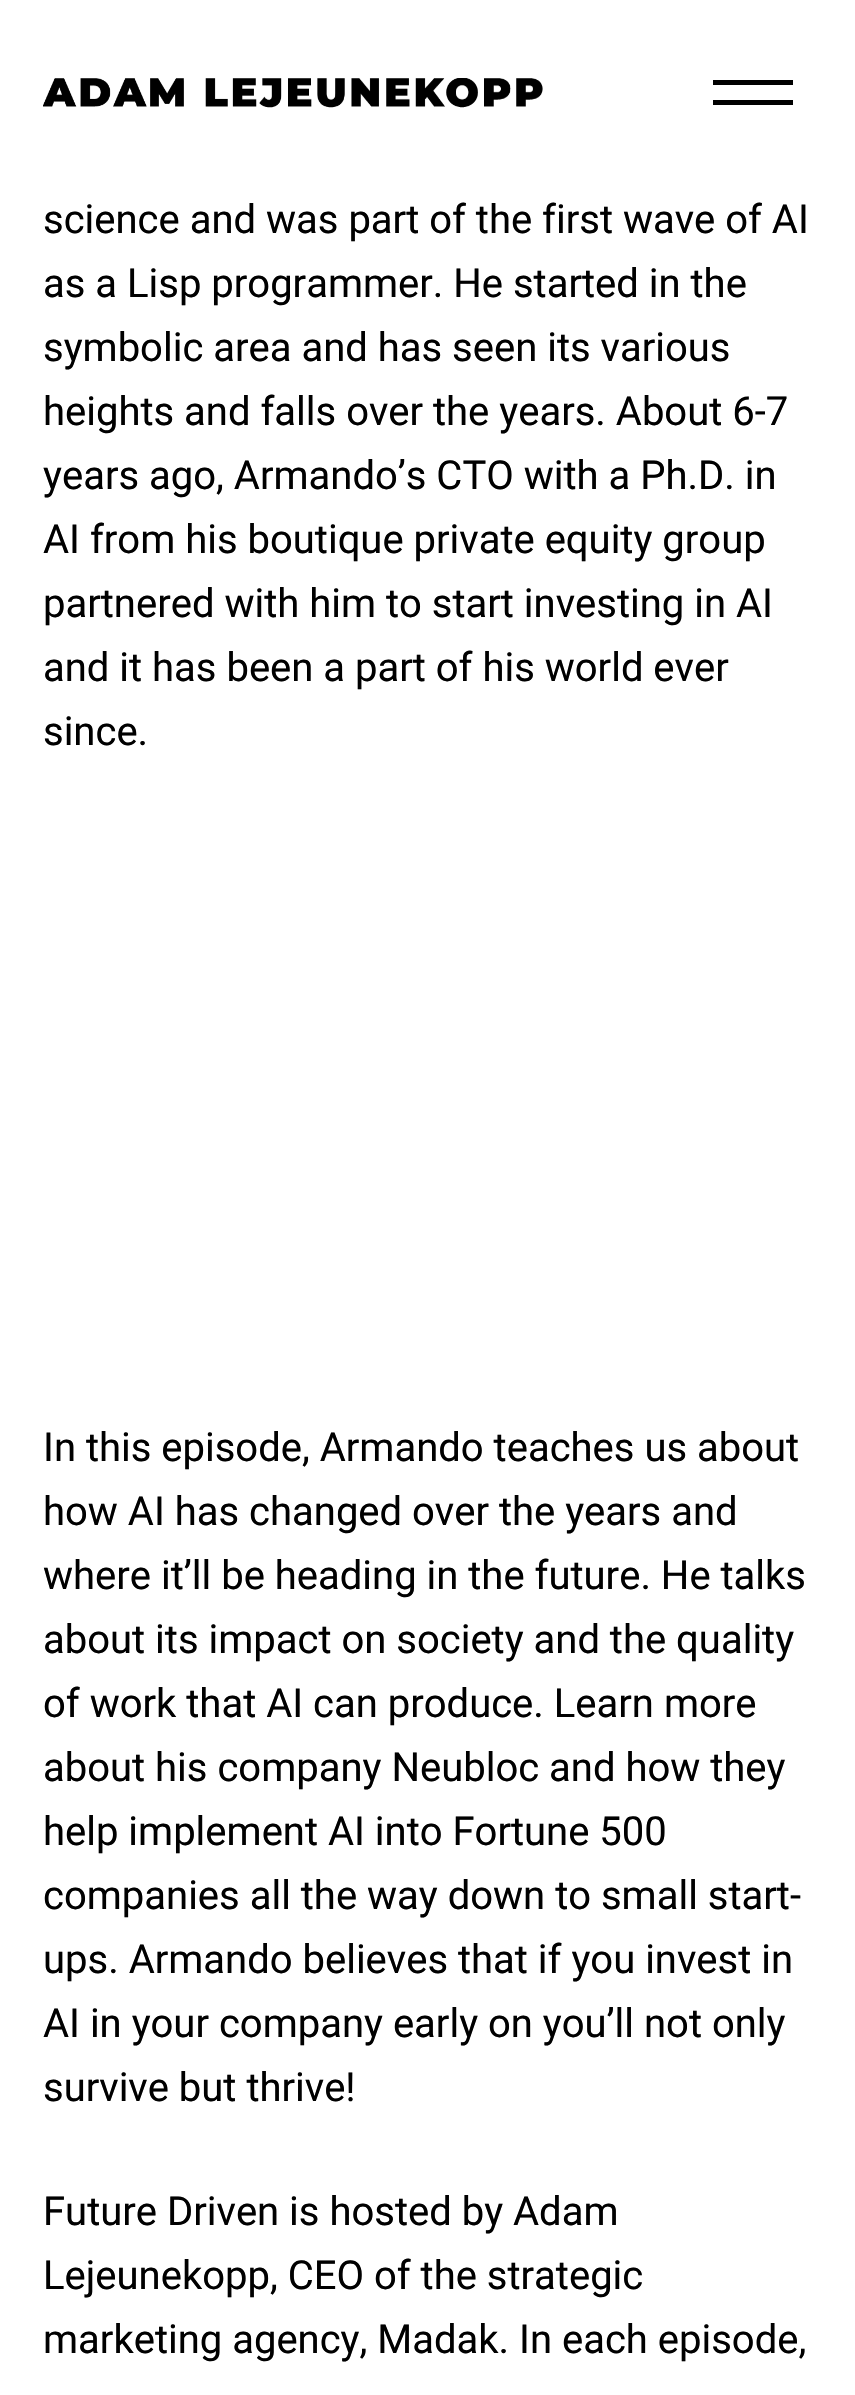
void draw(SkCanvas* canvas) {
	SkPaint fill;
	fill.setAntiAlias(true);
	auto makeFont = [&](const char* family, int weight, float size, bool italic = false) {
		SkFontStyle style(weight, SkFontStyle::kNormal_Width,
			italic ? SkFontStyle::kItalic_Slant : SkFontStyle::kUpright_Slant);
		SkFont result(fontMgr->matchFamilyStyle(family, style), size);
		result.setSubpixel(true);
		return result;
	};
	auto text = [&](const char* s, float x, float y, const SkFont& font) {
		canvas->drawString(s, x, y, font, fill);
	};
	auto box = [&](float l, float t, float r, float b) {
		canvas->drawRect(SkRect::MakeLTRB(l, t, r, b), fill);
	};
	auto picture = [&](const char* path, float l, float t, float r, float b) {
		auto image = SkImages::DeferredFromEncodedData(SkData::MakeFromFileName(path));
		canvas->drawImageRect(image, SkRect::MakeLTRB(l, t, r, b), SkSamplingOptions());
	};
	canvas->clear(0xFFFFFFFF);
	picture("image0.png", 43, 78, 543, 108);
	fill.setColor(0xFF000000);
	box(713, 80, 793, 85);
	box(713, 100, 793, 105);
	auto font1 = makeFont("Roboto", 400, 40);
	text("science and was part of the first wave of AI", 43, 233, font1);
	text("as a Lisp programmer. He started in the", 43, 297, font1);
	text("symbolic area and has seen its various", 43, 361, font1);
	text("heights and falls over the years. About 6-7", 43, 425, font1);
	text("years ago, Armando’s CTO with a Ph.D. in", 43, 489, font1);
	text("AI from his boutique private equity group", 43, 553, font1);
	text("partnered with him to start investing in AI", 43, 617, font1);
	text("and it has been a part of his world ever", 43, 681, font1);
	text("since.", 43, 745, font1);
	text("In this episode, Armando teaches us about", 43, 1461, font1);
	text("how AI has changed over the years and", 43, 1525, font1);
	text("where it’ll be heading in the future. He talks", 43, 1589, font1);
	text("about its impact on society and the quality", 43, 1653, font1);
	text("of work that AI can produce. Learn more", 43, 1717, font1);
	text("about his company Neubloc and how they", 43, 1781, font1);
	text("help implement AI into Fortune 500", 43, 1845, font1);
	text("companies all the way down to small start-", 43, 1909, font1);
	text("ups. Armando believes that if you invest in", 43, 1973, font1);
	text("AI in your company early on you’ll not only", 43, 2037, font1);
	text("survive but thrive!", 43, 2101, font1);
	text("Future Driven is hosted by Adam", 43, 2225, font1);
	text("Lejeunekopp, CEO of the strategic", 43, 2289, font1);
	text("marketing agency, Madak. In each episode,", 43, 2353, font1);
}
